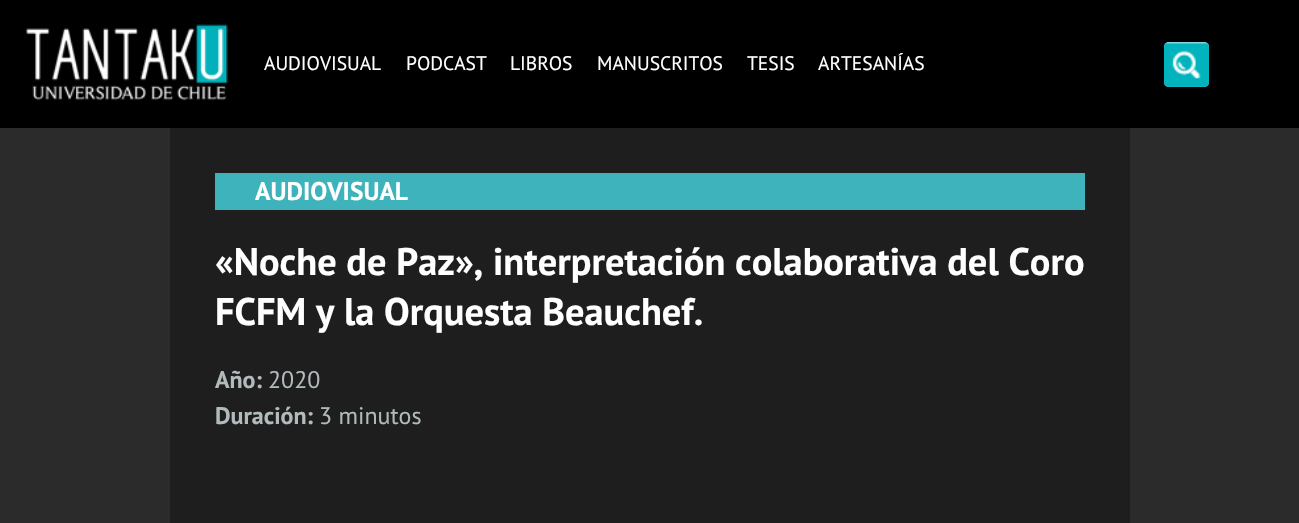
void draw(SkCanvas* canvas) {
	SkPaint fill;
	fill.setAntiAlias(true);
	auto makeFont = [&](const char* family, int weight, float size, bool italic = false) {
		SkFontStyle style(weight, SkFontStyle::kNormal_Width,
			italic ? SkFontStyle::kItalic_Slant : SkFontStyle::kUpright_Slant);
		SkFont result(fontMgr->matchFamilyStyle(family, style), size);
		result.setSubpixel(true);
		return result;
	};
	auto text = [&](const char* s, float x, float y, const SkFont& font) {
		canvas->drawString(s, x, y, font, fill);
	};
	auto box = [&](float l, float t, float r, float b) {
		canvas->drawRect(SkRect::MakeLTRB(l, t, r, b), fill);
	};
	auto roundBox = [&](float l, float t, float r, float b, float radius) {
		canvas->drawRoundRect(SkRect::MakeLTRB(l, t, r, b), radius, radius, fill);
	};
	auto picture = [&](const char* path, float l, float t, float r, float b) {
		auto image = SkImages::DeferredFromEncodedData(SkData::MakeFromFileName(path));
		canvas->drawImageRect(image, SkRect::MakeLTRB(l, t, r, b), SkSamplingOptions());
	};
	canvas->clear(0xFF2B2B2B);
	fill.setColor(0xFF000000);
	box(0, 0, 1299, 128);
	picture("image0.png", 26, 24, 228, 101);
	fill.setColor(0xFFFFFFFF);
	roundBox(1164, 42, 1209, 87, 5);
	picture("image1.png", 1164, 42, 1209, 87);
	fill.setColor(0xFF1E1E1E);
	box(170, 128, 1130, 523);
	fill.setColor(0xFF3EB3BC);
	box(215, 173, 1085, 210);
	auto font1 = makeFont("PT Sans", 400, 19.5f);
	fill.setColor(0xFFFFFFFF);
	text("AUDIOVISUAL", 264, 70, font1);
	text("PODCAST", 406, 70, font1);
	text("LIBROS", 510, 70, font1);
	text("MANUSCRITOS", 597, 70, font1);
	text("TESIS", 747, 70, font1);
	text("ARTESANÍAS", 818, 70, font1);
	auto font2 = makeFont("PT Sans", 700, 25.5f);
	text("AUDIOVISUAL", 255, 200, font2);
	auto font3 = makeFont("PT Sans", 700, 38.4f);
	text("«Noche de Paz», interpretación colaborativa del Coro", 215, 275, font3);
	text("FCFM y la Orquesta Beauchef.", 215, 325, font3);
	auto font4 = makeFont("PT Sans", 700, 24);
	fill.setColor(0xFFB1BBBC);
	text("Año:", 215, 388, font4);
	auto font5 = makeFont("PT Sans", 400, 24);
	text("2020", 268, 388, font5);
	text("Duración:", 215, 424, font4);
	text("3 minutos", 319, 424, font5);
}
